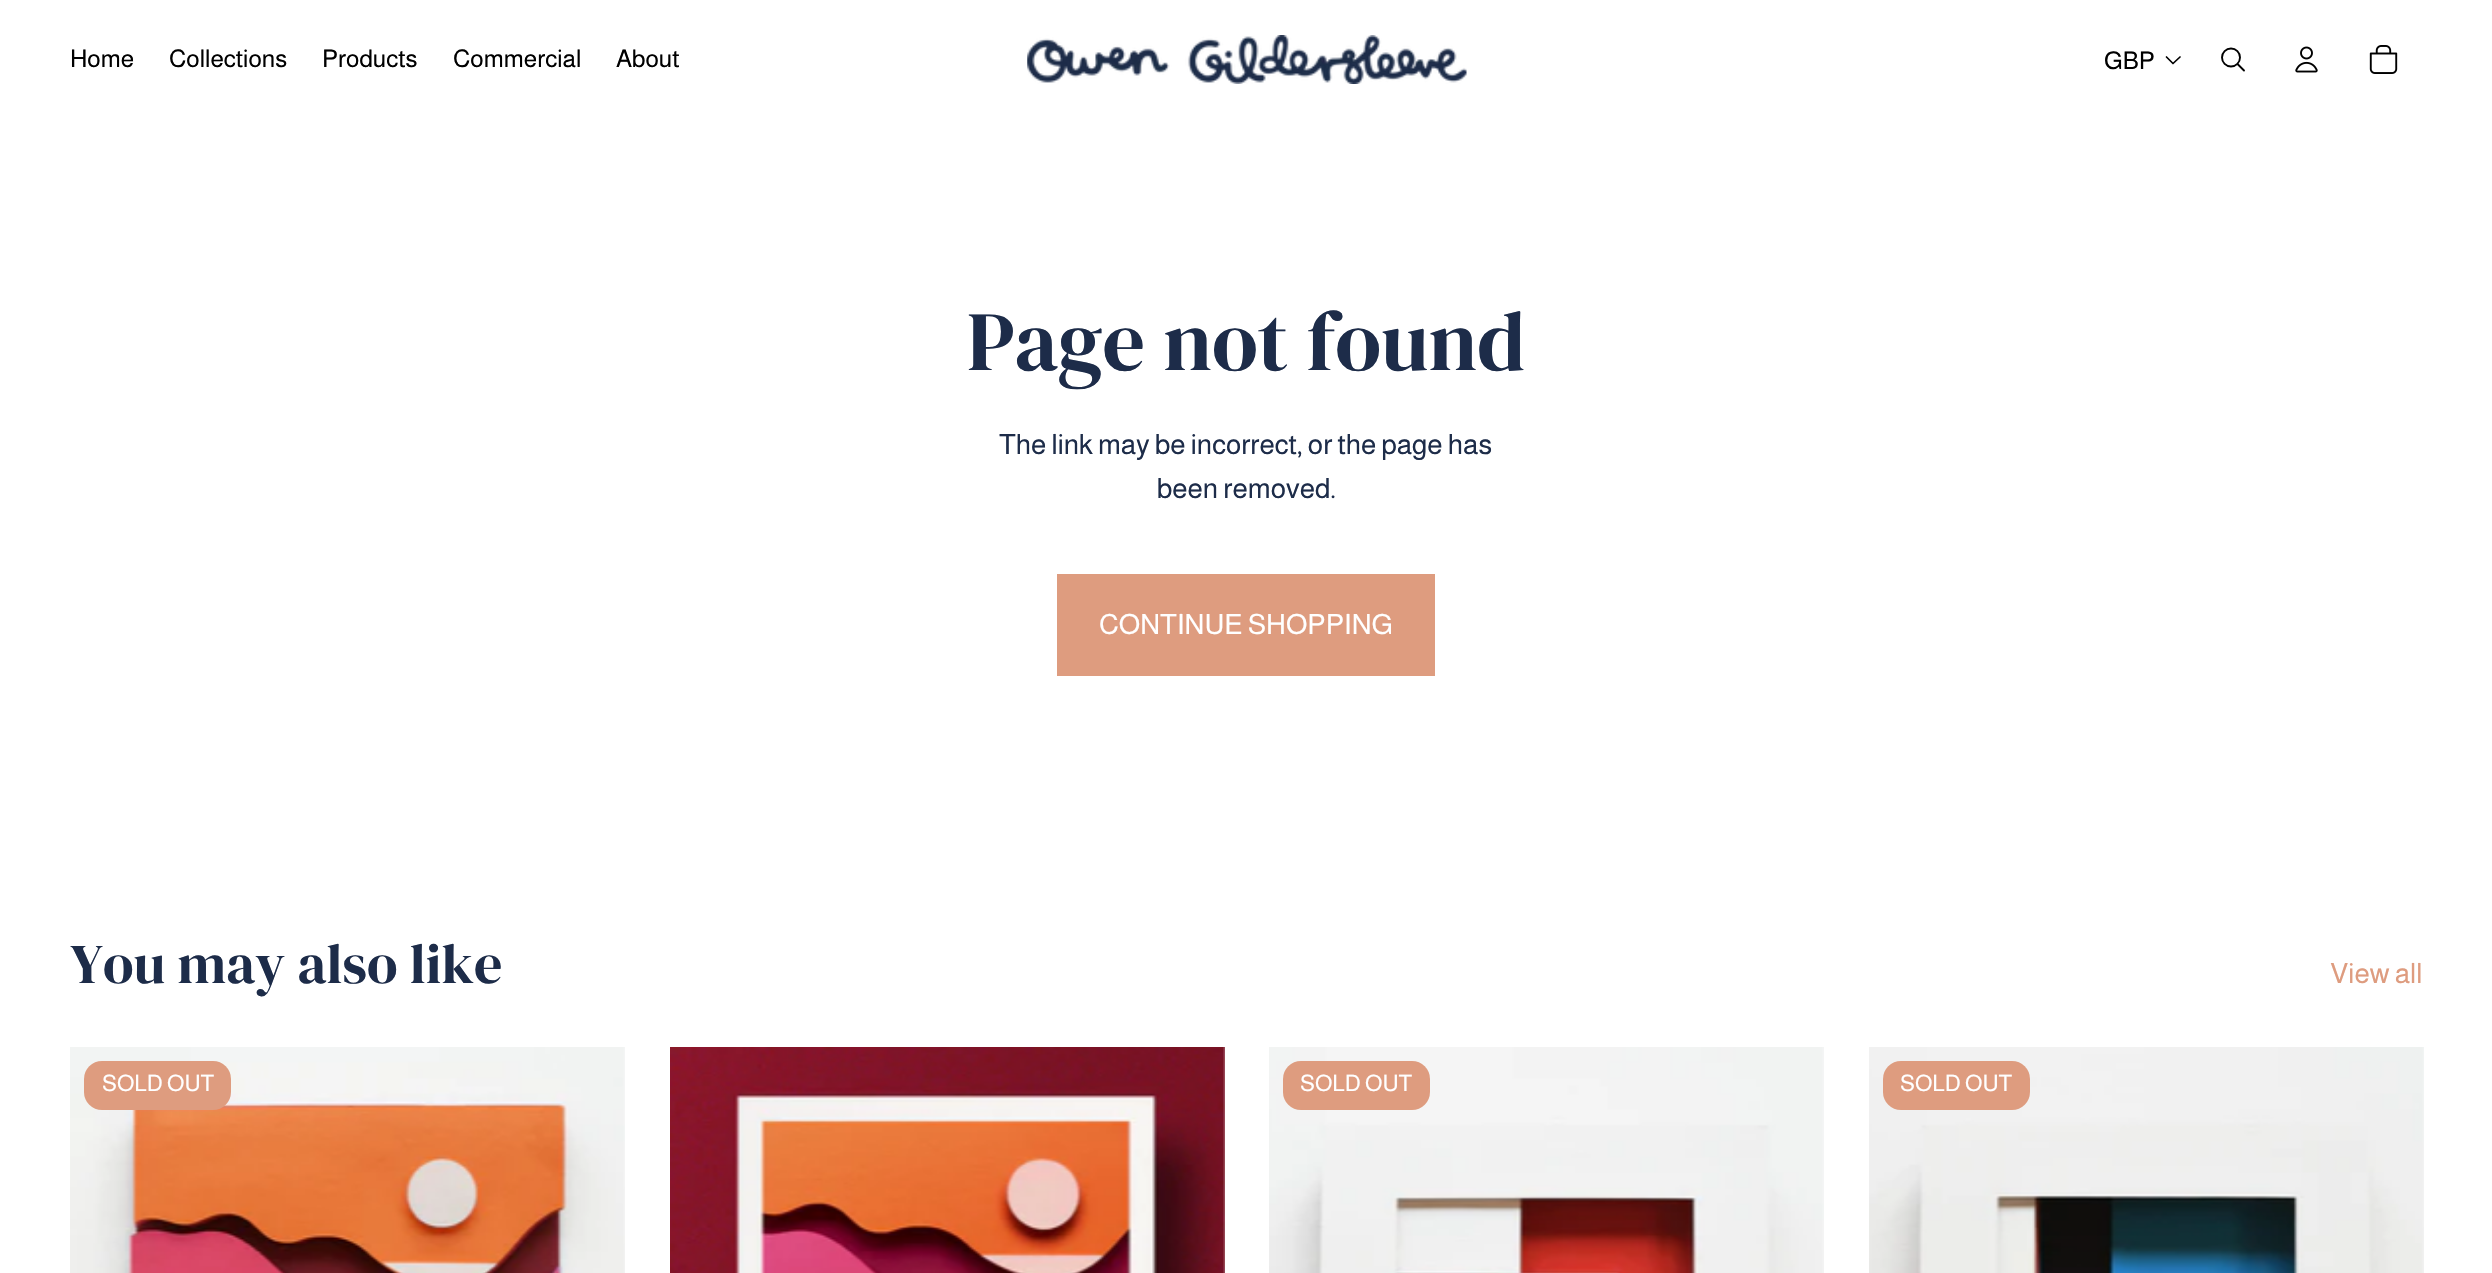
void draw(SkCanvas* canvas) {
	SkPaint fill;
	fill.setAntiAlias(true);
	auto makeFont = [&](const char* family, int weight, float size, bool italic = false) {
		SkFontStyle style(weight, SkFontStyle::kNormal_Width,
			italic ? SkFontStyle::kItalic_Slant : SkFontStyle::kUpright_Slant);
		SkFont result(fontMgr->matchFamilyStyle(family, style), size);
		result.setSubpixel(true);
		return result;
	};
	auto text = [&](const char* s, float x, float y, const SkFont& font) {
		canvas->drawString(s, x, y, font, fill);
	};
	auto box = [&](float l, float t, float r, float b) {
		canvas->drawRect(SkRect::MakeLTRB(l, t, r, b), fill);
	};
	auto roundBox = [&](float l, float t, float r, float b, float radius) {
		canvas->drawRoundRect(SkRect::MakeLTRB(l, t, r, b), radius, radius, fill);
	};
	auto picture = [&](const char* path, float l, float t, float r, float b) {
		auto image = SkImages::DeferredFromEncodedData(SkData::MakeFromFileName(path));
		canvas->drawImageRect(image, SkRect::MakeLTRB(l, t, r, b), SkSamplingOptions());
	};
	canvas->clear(0xFFFFFFFF);
	picture("image0.png", 1027, 35, 1467, 84);
	fill.setStyle(SkPaint::kStroke_Style);
	fill.setStrokeWidth(1.7f);
	fill.setStrokeCap(SkPaint::kRound_Cap);
	fill.setStrokeJoin(SkPaint::kRound_Join);
	fill.setColor(0xFF000000);
	canvas->drawPath(SkPathBuilder().moveTo(2180, 57).lineTo(2173, 63.5f).lineTo(2166.5f, 57).detach(), fill);
	fill.setStrokeWidth(1.9f);
	fill.setStrokeCap(SkPaint::kButt_Cap);
	fill.setStrokeJoin(SkPaint::kMiter_Join);
	canvas->drawCircle(2231, 57.5f, 9, fill);
	fill.setStrokeCap(SkPaint::kRound_Cap);
	fill.setStrokeJoin(SkPaint::kRound_Join);
	canvas->drawPath(SkPathBuilder().moveTo(2238, 64.5f).lineTo(2244, 70.5f).detach(), fill);
	picture("image1.png", 2295, 46, 2318, 73);
	picture("image2.png", 2369, 45, 2398, 74);
	fill.setStyle(SkPaint::kFill_Style);
	fill.setColor(0xFFDE9C7F);
	box(1057, 574, 1435, 676);
	picture("image3.png", 70, 1047, 625, 1273);
	roundBox(84, 1061, 231, 1110, 18);
	picture("image4.png", 670, 1047, 1225, 1273);
	picture("image5.png", 1269, 1047, 1824, 1273);
	roundBox(1283, 1061, 1430, 1110, 18);
	picture("image6.png", 1869, 1047, 2424, 1273);
	roundBox(1883, 1061, 2030, 1110, 18);
	auto font1 = makeFont("Almarai", 400, 24.5f);
	fill.setColor(0xFF000000);
	text("Home", 70, 67, font1);
	text("Collections", 169, 67, font1);
	text("Products", 322, 67, font1);
	text("Commercial", 453, 67, font1);
	text("About", 616, 67, font1);
	text("GBP", 2104, 69, font1);
	auto font2 = makeFont("DM Serif Display", 400, 84);
	fill.setColor(0xFF1D2C49);
	text("Page not found", 967, 370, font2);
	auto font3 = makeFont("Almarai", 400, 28);
	text("The link may be incorrect, or the page has", 999, 454, font3);
	text("been removed.", 1157, 498, font3);
	fill.setColor(0xFFFFFFFF);
	text("CONTINUE SHOPPING", 1099, 634, font3);
	auto font4 = makeFont("DM Serif Display", 400, 56);
	fill.setColor(0xFF1D2C49);
	text("You may also like", 70, 983, font4);
	fill.setColor(0xFFDE9C7F);
	text("View all", 2330, 983, font3);
	auto font5 = makeFont("Almarai", 400, 22.75f);
	fill.setColor(0xFFFFFFFF);
	text("SOLD OUT", 102, 1091, font5);
	text("SOLD OUT", 1300, 1091, font5);
	text("SOLD OUT", 1900, 1091, font5);
}
